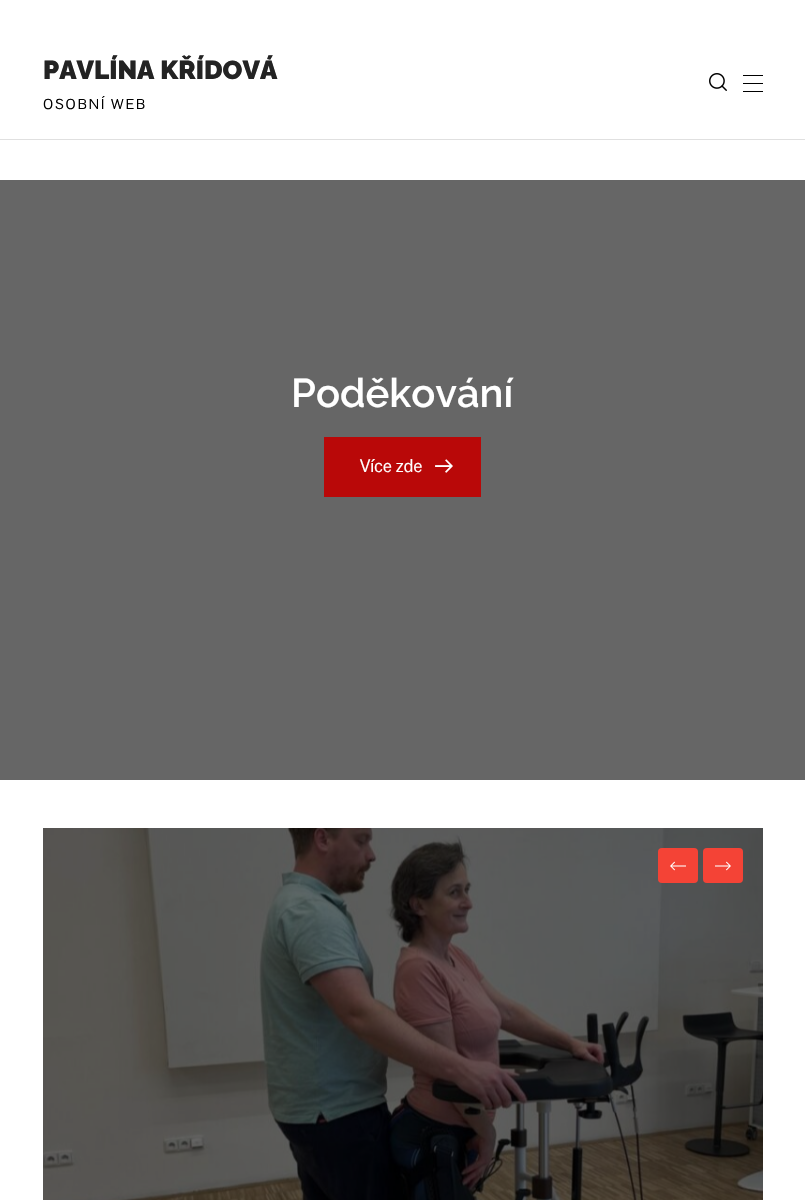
void draw(SkCanvas* canvas) {
	SkPaint fill;
	fill.setAntiAlias(true);
	auto makeFont = [&](const char* family, int weight, float size, bool italic = false) {
		SkFontStyle style(weight, SkFontStyle::kNormal_Width,
			italic ? SkFontStyle::kItalic_Slant : SkFontStyle::kUpright_Slant);
		SkFont result(fontMgr->matchFamilyStyle(family, style), size);
		result.setSubpixel(true);
		return result;
	};
	auto text = [&](const char* s, float x, float y, const SkFont& font) {
		canvas->drawString(s, x, y, font, fill);
	};
	auto spacedText = [&](const char* s, float x, float y, const SkFont& font, const SkPaint& ink, float letter, float word) {
		std::vector<SkGlyphID> glyphs(font.countText(s, strlen(s), SkTextEncoding::kUTF8));
		std::vector<float> xs(glyphs.size());
		font.textToGlyphs(s, strlen(s), SkTextEncoding::kUTF8, glyphs);
		font.getXPos(glyphs, xs, x);
		float extra = 0;
		for (size_t i = 0; i < glyphs.size(); i++) {
			xs[i] += extra;
			extra += letter + word * (glyphs[i] == font.unicharToGlyph(' '));
		}
		canvas->drawTextBlob(SkTextBlob::MakeFromPosHGlyphs(glyphs, xs, y, font), 0, 0, ink);
	};
	auto box = [&](float l, float t, float r, float b) {
		canvas->drawRect(SkRect::MakeLTRB(l, t, r, b), fill);
	};
	auto roundBox = [&](float l, float t, float r, float b, float radius) {
		canvas->drawRoundRect(SkRect::MakeLTRB(l, t, r, b), radius, radius, fill);
	};
	auto picture = [&](const char* path, float l, float t, float r, float b) {
		auto image = SkImages::DeferredFromEncodedData(SkData::MakeFromFileName(path));
		canvas->drawImageRect(image, SkRect::MakeLTRB(l, t, r, b), SkSamplingOptions());
	};
	canvas->clear(0xFFFFFFFF);
	fill.setColor(0xFFE0E0E0);
	box(0, 139, 805, 140);
	picture("image0.png", 709, 73, 727, 91);
	fill.setColor(0xFF000000);
	box(743, 83, 763, 84);
	box(743, 75, 763, 76);
	box(743, 91, 763, 92);
	fill.setColor(0xFF666666);
	box(0, 180, 805, 780);
	fill.setColor(0xFFB90808);
	box(324, 437, 481, 497);
	picture("image1.png", 435, 459, 453, 473);
	picture("image2.png", 43, 828, 763, 1200);
	fill.setColor(0xFFF44336);
	roundBox(658, 848, 698, 883, 4);
	picture("image3.png", 670, 861, 686, 871);
	roundBox(703, 848, 743, 883, 4);
	picture("image4.png", 715, 861, 731, 871);
	auto font1 = makeFont("Raleway", 900, 26);
	fill.setColor(0xFF232323);
	text("PAVLÍNA KŘÍDOVÁ", 43, 79, font1);
	auto font2 = makeFont("Pontano Sans", 400, 14);
	fill.setColor(0xFF000000);
	spacedText("OSOBNÍ WEB", 43, 109, font2, fill, 2, 0);
	auto font3 = makeFont("Raleway", 600, 40);
	fill.setColor(0xFFFFFFFF);
	text("Poděkování", 291, 407, font3);
	auto font4 = makeFont("Pontano Sans", 400, 18);
	text("Více zde", 360, 472, font4);
}
